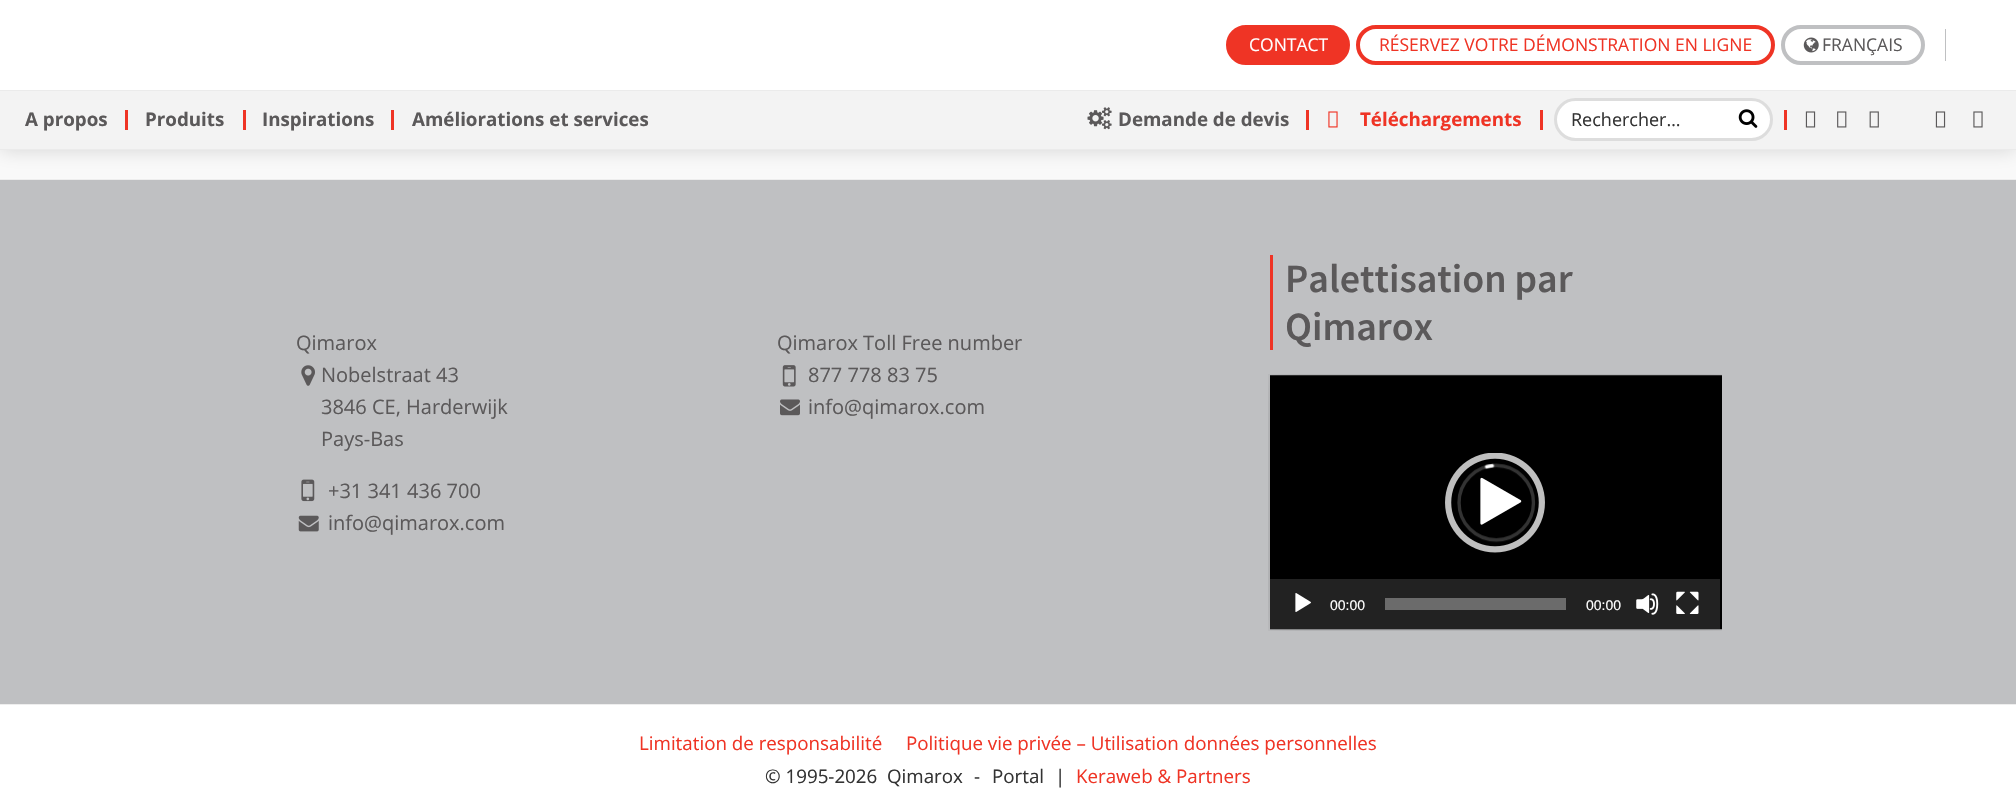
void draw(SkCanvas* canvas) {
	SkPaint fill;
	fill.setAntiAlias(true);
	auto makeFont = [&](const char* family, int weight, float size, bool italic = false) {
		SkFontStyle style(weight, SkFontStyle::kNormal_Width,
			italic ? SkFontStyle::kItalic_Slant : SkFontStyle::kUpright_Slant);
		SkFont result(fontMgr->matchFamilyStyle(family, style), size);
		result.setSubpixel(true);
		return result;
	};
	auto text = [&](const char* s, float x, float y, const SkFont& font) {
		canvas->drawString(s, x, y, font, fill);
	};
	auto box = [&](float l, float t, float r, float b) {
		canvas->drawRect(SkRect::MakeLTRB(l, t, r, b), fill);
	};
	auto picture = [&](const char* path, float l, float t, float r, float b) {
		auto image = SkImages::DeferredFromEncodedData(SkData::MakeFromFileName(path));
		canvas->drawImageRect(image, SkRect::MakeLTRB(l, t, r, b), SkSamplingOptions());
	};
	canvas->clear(0xFFFFFFFF);
	fill.setColor(0xFFFAFAFA);
	box(0, 150, 2016, 179);
	fill.setColor(0xFFEEEEEE);
	box(0, 179, 2016, 180);
	fill.setColor(0x26000000);
	fill.setMaskFilter(SkMaskFilter::MakeBlur(kNormal_SkBlurStyle, 9.5f));
	canvas->drawRect(SkRect::MakeLTRB(0, 0, 2016, 150), fill);
	fill.setMaskFilter(nullptr);
	fill.setColor(0xFFFFFFFF);
	box(0, 0, 2016, 90);
	fill.setColor(0xFFEF3425);
	canvas->drawRoundRect(SkRect::MakeLTRB(1228, 27, 1348, 63), 18, 18, fill);
	fill.setStyle(SkPaint::kStroke_Style);
	fill.setStrokeWidth(4);
	canvas->drawRoundRect(SkRect::MakeLTRB(1228, 27, 1348, 63), 18, 18, fill);
	canvas->drawRoundRect(SkRect::MakeLTRB(1358, 27, 1773, 63), 18, 18, fill);
	fill.setColor(0xFFBFC0C2);
	canvas->drawRoundRect(SkRect::MakeLTRB(1783, 27, 1923, 63), 18, 18, fill);
	picture("image0.png", 1803, 37, 1819, 53);
	fill.setStyle(SkPaint::kFill_Style);
	box(1945, 29, 1946, 61);
	fill.setColor(0xFFF3F3F3);
	box(0, 91, 2016, 149);
	fill.setColor(0xFFEBEBEB);
	box(0, 90, 2016, 91);
	box(0, 149, 2016, 150);
	fill.setColor(0xFFEF3425);
	box(125, 110, 128, 130);
	box(243, 110, 246, 130);
	box(391, 110, 394, 130);
	picture("image1.png", 1087, 107, 1112, 130);
	box(1306, 110, 1309, 130);
	picture("image2.png", 1328, 111, 1338, 128);
	box(1540, 110, 1543, 130);
	fill.setColor(0xFFFFFFFF);
	canvas->drawRoundRect(SkRect::MakeLTRB(1555.5f, 99.5f, 1771.5f, 139.5f), 20, 20, fill);
	fill.setStyle(SkPaint::kStroke_Style);
	fill.setStrokeWidth(3);
	fill.setColor(0xFFDDDDDD);
	canvas->drawRoundRect(SkRect::MakeLTRB(1555.5f, 99.5f, 1771.5f, 139.5f), 20, 20, fill);
	picture("image3.png", 1738, 109, 1758, 128);
	fill.setStyle(SkPaint::kFill_Style);
	fill.setColor(0xFFEF3425);
	box(1784, 110, 1787, 130);
	picture("image4.png", 1805, 111, 1816, 128);
	picture("image5.png", 1837, 111, 1847, 128);
	picture("image6.png", 1869, 111, 1879, 128);
	picture("image4.png", 1935, 111, 1946, 128);
	picture("image7.png", 1973, 111, 1983, 128);
	fill.setColor(0xFFBFC0C2);
	box(0, 180, 2016, 704);
	picture("image8.png", 301, 365, 315, 386);
	picture("image9.png", 301, 479, 315, 502);
	picture("image10.png", 298, 515, 319, 532);
	picture("image11.png", 782, 365, 796, 387);
	picture("image12.png", 780, 399, 800, 416);
	fill.setColor(0xFFEF3425);
	box(1270, 255, 1273, 350);
	picture("image13.png", 1268, 374, 1722, 631);
	picture("image14.png", 1445, 453, 1545, 553);
	fill.setColor(0xFF222222);
	box(1270, 579, 1720, 629);
	picture("image15.png", 1295, 593, 1311, 612);
	fill.setColor(0xFF6B6B6B);
	box(1385, 598, 1566, 610);
	picture("image16.png", 1636, 593, 1659, 615);
	picture("image17.png", 1676, 591, 1699, 614);
	fill.setColor(0xFFEEEEEE);
	box(0, 704, 2016, 705);
	auto font1 = makeFont("Open Sans", 400, 17.5f);
	fill.setColor(0xFFFFFFFF);
	text("CONTACT", 1249, 51, font1);
	fill.setColor(0xFFEF3425);
	text("RÉSERVEZ VOTRE DÉMONSTRATION EN LIGNE", 1379, 51, font1);
	fill.setColor(0xFF5B595A);
	text("FRANÇAIS", 1822, 51, font1);
	auto font2 = makeFont("Open Sans", 700, 18.75f);
	text("A propos", 25, 126, font2);
	text("Produits", 145, 126, font2);
	text("Inspirations", 262, 126, font2);
	text("Améliorations et services", 412, 126, font2);
	text("Demande de devis", 1118, 126, font2);
	fill.setColor(0xFFEF3425);
	text("Téléchargements", 1360, 126, font2);
	auto font3 = makeFont("Open Sans", 400, 18);
	fill.setColor(0xFF333333);
	text("Rechercher…", 1571, 126, font3);
	auto font4 = makeFont("Open Sans", 400, 20);
	fill.setColor(0xFF5B595A);
	text("Qimarox", 296, 350, font4);
	text("Nobelstraat 43", 321, 382, font4);
	text("3846 CE, Harderwijk", 321, 414, font4);
	text("Pays-Bas", 321, 446, font4);
	text("+31 341 436 700", 328, 498, font4);
	text("info@qimarox.com", 328, 530, font4);
	text("Qimarox Toll Free number", 777, 350, font4);
	text("877 778 83 75", 808, 382, font4);
	text("info@qimarox.com", 808, 414, font4);
	auto font5 = makeFont("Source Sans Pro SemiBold", 600, 40);
	text("Palettisation par", 1285, 292, font5);
	text("Qimarox", 1285, 340, font5);
	auto font6 = makeFont("Liberation Sans", 400, 14);
	fill.setColor(0xFFFFFFFF);
	text("00:00", 1330, 610, font6);
	text("00:00", 1586, 610, font6);
	auto font7 = makeFont("Open Sans", 400, 18.75f);
	fill.setColor(0xFFEF3425);
	text("Limitation de responsabilité", 639, 750, font7);
	text("Politique vie privée – Utilisation données personnelles", 906, 750, font7);
	fill.setColor(0xFF333333);
	text("© 1995-2026", 765, 783, font7);
	text("Qimarox", 887, 783, font7);
	text("-", 974, 783, font7);
	text("Portal", 992, 783, font7);
	text("|", 1055, 783, font7);
	fill.setColor(0xFFEF3425);
	text("Keraweb & Partners", 1076, 783, font7);
}
